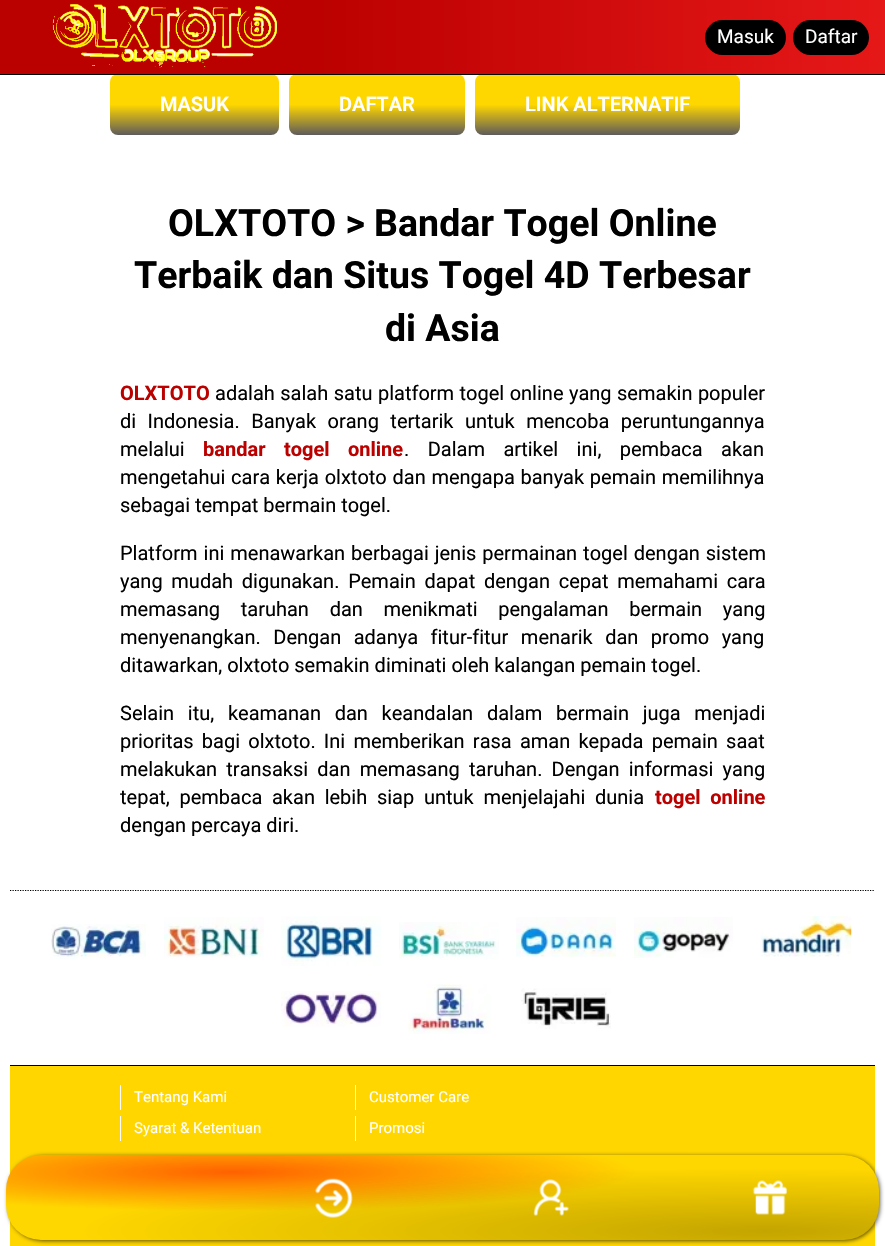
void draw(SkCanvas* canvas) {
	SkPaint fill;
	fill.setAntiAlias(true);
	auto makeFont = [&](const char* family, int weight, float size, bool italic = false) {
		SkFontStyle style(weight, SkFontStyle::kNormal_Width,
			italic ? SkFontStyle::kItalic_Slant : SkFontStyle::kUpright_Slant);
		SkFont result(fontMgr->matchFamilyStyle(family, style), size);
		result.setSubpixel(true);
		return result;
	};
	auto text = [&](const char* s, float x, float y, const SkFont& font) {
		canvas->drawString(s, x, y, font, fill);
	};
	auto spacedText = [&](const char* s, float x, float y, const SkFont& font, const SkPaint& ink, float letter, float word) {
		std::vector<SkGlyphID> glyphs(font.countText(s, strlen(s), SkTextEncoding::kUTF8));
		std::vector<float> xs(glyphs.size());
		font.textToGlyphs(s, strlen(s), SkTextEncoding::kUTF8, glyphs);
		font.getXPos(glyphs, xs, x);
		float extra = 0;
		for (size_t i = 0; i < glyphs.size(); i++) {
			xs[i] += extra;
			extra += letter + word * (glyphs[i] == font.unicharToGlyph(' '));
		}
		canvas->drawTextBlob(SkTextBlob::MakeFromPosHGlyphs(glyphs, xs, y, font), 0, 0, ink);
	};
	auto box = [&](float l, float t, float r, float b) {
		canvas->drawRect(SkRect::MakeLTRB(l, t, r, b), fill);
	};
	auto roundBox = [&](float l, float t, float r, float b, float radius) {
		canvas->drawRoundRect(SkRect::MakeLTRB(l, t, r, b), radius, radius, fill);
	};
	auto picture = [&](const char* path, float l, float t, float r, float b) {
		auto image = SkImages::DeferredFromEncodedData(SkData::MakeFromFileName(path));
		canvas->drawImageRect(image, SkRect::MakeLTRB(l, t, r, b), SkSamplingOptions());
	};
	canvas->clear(0xFFFFFFFF);
	{
		const SkColor colors[] = {0xFFBB0000, 0xFFF42020};
		const float stops[] = {0.29f, 1};
		const SkPoint ends[] = {{-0.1f, 38}, {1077, 35}};
		fill.setShader(SkGradientShader::MakeLinear(ends, colors, stops, 2, SkTileMode::kClamp));
		fill.setAlpha(255);
	}
	box(0, 0, 885, 74);
	{
		const SkColor colors[] = {0xFFFFD700, 0xFFFFD700, 0xFF5E5B5B};
		const float stops[] = {0, 0.5f, 1};
		const SkPoint ends[] = {{194, 74}, {194, 135}};
		fill.setShader(SkGradientShader::MakeLinear(ends, colors, stops, 3, SkTileMode::kClamp));
		fill.setAlpha(255);
	}
	roundBox(110, 74, 279, 135, 8);
	{
		const SkColor colors[] = {0xFFFFD700, 0xFFFFD700, 0xFF5E5B5B};
		const float stops[] = {0, 0.5f, 1};
		const SkPoint ends[] = {{377, 74}, {377, 135}};
		fill.setShader(SkGradientShader::MakeLinear(ends, colors, stops, 3, SkTileMode::kClamp));
		fill.setAlpha(255);
	}
	roundBox(289, 74, 465, 135, 8);
	{
		const SkColor colors[] = {0xFFFFD700, 0xFFFFD700, 0xFF5E5B5B};
		const float stops[] = {0, 0.5f, 1};
		const SkPoint ends[] = {{608, 74}, {608, 135}};
		fill.setShader(SkGradientShader::MakeLinear(ends, colors, stops, 3, SkTileMode::kClamp));
		fill.setAlpha(255);
	}
	roundBox(475, 74, 740, 135, 8);
	fill.setShader(nullptr);
	fill.setColor(0xFF000000);
	box(0, 74, 885, 75);
	picture("image0.png", 52, 4, 277, 68);
	roundBox(705, 20, 786, 55, 17.5f);
	roundBox(793, 20, 869, 55, 17.5f);
	fill.setStyle(SkPaint::kStroke_Style);
	fill.setStrokeWidth(1.2f);
	fill.setPathEffect(SkDashPathEffect::Make({{1.25f, 1.25f}}, 0));
	canvas->drawPath(SkPathBuilder().moveTo(10, 890.5f).lineTo(875, 890.5f).detach(), fill);
	fill.setPathEffect(nullptr);
	picture("image1.png", 51, 924, 146, 959);
	picture("image2.png", 164, 917, 264, 958);
	picture("image3.png", 281, 916, 381, 966);
	picture("image4.png", 399, 922, 499, 960);
	picture("image5.png", 516, 917, 616, 957);
	picture("image6.png", 634, 917, 733, 958);
	picture("image7.png", 760, 916, 852, 957);
	picture("image8.png", 281, 991, 381, 1027);
	picture("image9.png", 408, 984, 491, 1034);
	picture("image10.png", 521, 988, 611, 1029);
	fill.setStyle(SkPaint::kFill_Style);
	{
		const SkColor colors[] = {0xFFFFD600, 0xFFFFD700};
		const float stops[] = {0.29f, 1};
		const SkPoint ends[] = {{10, 1182}, {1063, 1180}};
		fill.setShader(SkGradientShader::MakeLinear(ends, colors, stops, 2, SkTileMode::kClamp));
		fill.setAlpha(255);
	}
	box(10, 1066, 875, 1246);
	fill.setShader(nullptr);
	fill.setColor(0xFF000000);
	box(10, 1065, 875, 1066);
	fill.setColor(0xFFFFFFFF);
	box(120, 1085, 121, 1110);
	box(355, 1085, 356, 1110);
	box(120, 1116, 121, 1141);
	box(355, 1116, 356, 1141);
	fill.setColor(0xA3000000);
	fill.setMaskFilter(SkMaskFilter::MakeBlur(kNormal_SkBlurStyle, 2));
	canvas->drawRoundRect(SkRect::MakeLTRB(8, 1156, 880, 1241), 35, 35, fill);
	fill.setMaskFilter(nullptr);
	fill.setColor(0xFFFFD700);
	roundBox(6, 1155, 879, 1240, 35);
	{
		const SkColor colors[] = {0x8CFF0000, 0x00FF0000, 0x00FFFFFF};
		const float stops[] = {0, 0.7f, 1};
		SkMatrix m = SkMatrix::Translate(233, 1172).preScale(576, 56);
		fill.setShader(SkGradientShader::MakeRadial({0, 0}, 1, colors, stops, 3, SkTileMode::kClamp, 0, &m));
		fill.setAlpha(255);
	}
	roundBox(6, 1155, 879, 1240, 35);
	{
		const SkColor colors[] = {0x3B000000, 0x00000000};
		const float stops[] = {0, 0.86f};
		SkMatrix m = SkMatrix::Translate(765, 1231).preScale(811, 74);
		fill.setShader(SkGradientShader::MakeRadial({0, 0}, 1, colors, stops, 2, SkTileMode::kClamp, 0, &m));
		fill.setAlpha(255);
	}
	roundBox(6, 1155, 879, 1240, 35);
	picture("image11.png", 315, 1178, 353, 1218);
	picture("image12.png", 533, 1179, 569, 1216);
	picture("image13.png", 752, 1180, 787, 1215);
	auto font1 = makeFont("Roboto", 400, 19);
	fill.setShader(nullptr);
	fill.setColor(0xFFFFFFFF);
	text("Masuk", 717, 43, font1);
	text("Daftar", 805, 43, font1);
	auto font2 = makeFont("Roboto", 600, 20);
	text("MASUK", 160, 111, font2);
	text("DAFTAR", 339, 111, font2);
	text("LINK ALTERNATIF", 525, 111, font2);
	auto font3 = makeFont("Roboto", 700, 37.5f);
	fill.setColor(0xFF000000);
	text("OLXTOTO > Bandar Togel Online", 168, 236, font3);
	text("Terbaik dan Situs Togel 4D Terbesar", 134, 288, font3);
	text("di Asia", 385, 341, font3);
	auto font4 = makeFont("Roboto", 700, 20);
	fill.setColor(0xFFBB0000);
	text("OLXTOTO", 120, 400, font4);
	auto font5 = makeFont("Roboto", 400, 20);
	fill.setColor(0xFF000000);
	spacedText("adalah salah satu platform togel online yang semakin populer", 215, 400, font5, fill, 0, 0.5f);
	spacedText("di Indonesia. Banyak orang tertarik untuk mencoba peruntungannya", 120, 428, font5, fill, 0, 6.5f);
	text("melalui", 120, 456, font5);
	fill.setColor(0xFFBB0000);
	spacedText("bandar togel online", 203, 456, font4, fill, 0, 13.5f);
	fill.setColor(0xFF000000);
	spacedText(". Dalam artikel ini, pembaca akan", 404, 456, font5, fill, 0, 13.5f);
	spacedText("mengetahui cara kerja olxtoto dan mengapa banyak pemain memilihnya", 120, 484, font5, fill, 0, 0.75f);
	text("sebagai tempat bermain togel.", 120, 512, font5);
	spacedText("Platform ini menawarkan berbagai jenis permainan togel dengan sistem", 120, 560, font5, fill, 0, 1);
	spacedText("yang mudah digunakan. Pemain dapat dengan cepat memahami cara", 120, 588, font5, fill, 0, 3.75f);
	spacedText("memasang taruhan dan menikmati pengalaman bermain yang", 120, 616, font5, fill, 0, 15.75f);
	spacedText("menyenangkan. Dengan adanya fitur-fitur menarik dan promo yang", 120, 644, font5, fill, 0, 7.5f);
	text("ditawarkan, olxtoto semakin diminati oleh kalangan pemain togel.", 120, 672, font5);
	spacedText("Selain itu, keamanan dan keandalan dalam bermain juga menjadi", 120, 720, font5, fill, 0, 8.75f);
	spacedText("prioritas bagi olxtoto. Ini memberikan rasa aman kepada pemain saat", 120, 748, font5, fill, 0, 3.25f);
	spacedText("melakukan transaksi dan memasang taruhan. Dengan informasi yang", 120, 776, font5, fill, 0, 4.25f);
	spacedText("tepat, pembaca akan lebih siap untuk menjelajahi dunia", 120, 804, font5, fill, 0, 4.75f);
	fill.setColor(0xFFBB0000);
	spacedText("togel online", 655, 804, font4, fill, 0, 4.75f);
	fill.setColor(0xFF000000);
	text("dengan percaya diri.", 120, 832, font5);
	auto font6 = makeFont("Roboto", 400, 15);
	fill.setColor(0xFFFFFFFF);
	text("Tentang Kami", 134, 1102, font6);
	text("Customer Care", 369, 1102, font6);
	text("Syarat & Ketentuan", 134, 1133, font6);
	text("Promosi", 369, 1133, font6);
}
